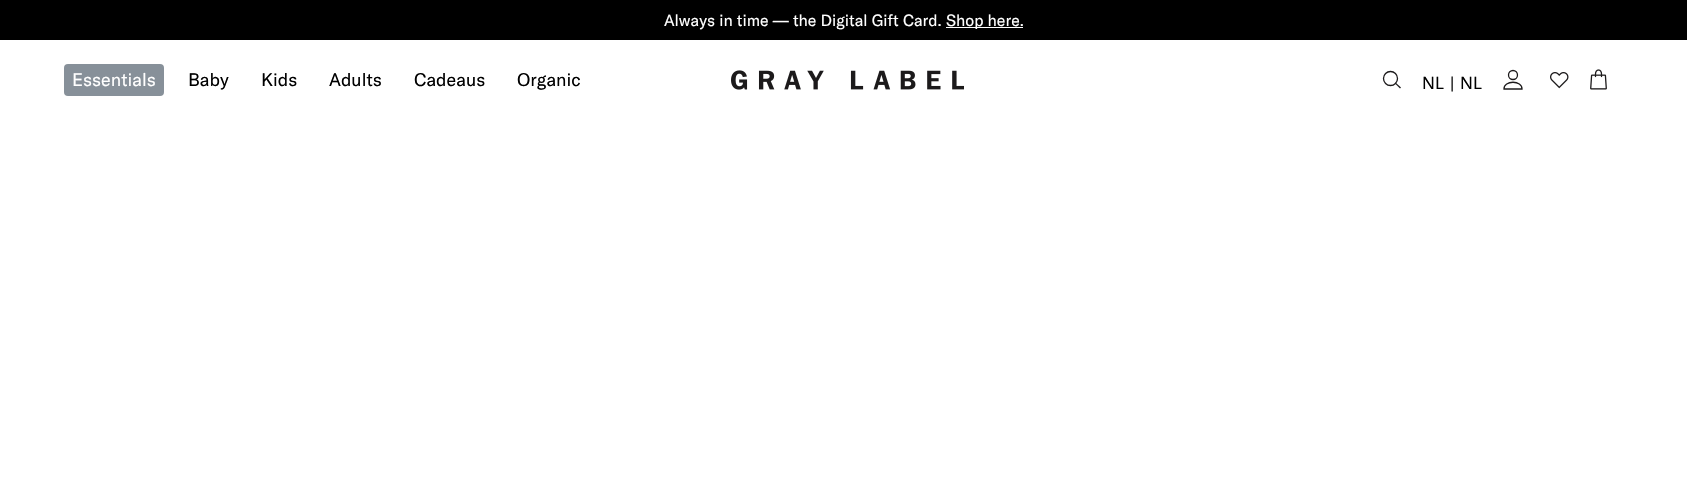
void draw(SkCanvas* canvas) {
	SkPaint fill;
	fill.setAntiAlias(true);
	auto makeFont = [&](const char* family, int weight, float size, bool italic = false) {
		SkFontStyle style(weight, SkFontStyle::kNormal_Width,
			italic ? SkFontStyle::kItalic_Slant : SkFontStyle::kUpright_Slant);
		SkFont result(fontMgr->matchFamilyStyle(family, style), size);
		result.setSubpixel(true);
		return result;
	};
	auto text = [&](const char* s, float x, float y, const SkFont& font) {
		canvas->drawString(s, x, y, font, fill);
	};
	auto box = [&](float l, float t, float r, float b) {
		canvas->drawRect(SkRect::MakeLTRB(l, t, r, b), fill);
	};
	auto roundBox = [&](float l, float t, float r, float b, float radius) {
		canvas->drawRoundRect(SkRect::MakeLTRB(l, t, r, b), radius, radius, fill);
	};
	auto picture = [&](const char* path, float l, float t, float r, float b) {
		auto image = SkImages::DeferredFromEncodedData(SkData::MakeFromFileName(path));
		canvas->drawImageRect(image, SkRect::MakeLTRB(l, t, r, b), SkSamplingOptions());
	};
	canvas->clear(0xFFFFFFFF);
	fill.setColor(0xFF000000);
	box(0, 0, 1687, 40);
	fill.setColor(0xFFFFFFFF);
	box(946, 27, 1023, 28);
	fill.setColor(0xFF879099);
	roundBox(64, 64, 164, 96, 4);
	picture("image0.png", 731, 70, 964, 90);
	fill.setStyle(SkPaint::kStroke_Style);
	fill.setStrokeWidth(1.3f);
	fill.setColor(0xFF1C1A1B);
	canvas->drawCircle(1390.5f, 78.5f, 7, fill);
	fill.setStyle(SkPaint::kFill_Style);
	canvas->drawPath(SkPathBuilder().moveTo(1395, 83.5f).lineTo(1395.5f, 82.5f).lineTo(1401, 87.5f).lineTo(1400, 88.5f).close().detach(), fill);
	fill.setStyle(SkPaint::kStroke_Style);
	canvas->drawPath(SkPathBuilder().moveTo(1522, 89).lineTo(1504, 89).cubicTo(1503.5f, 80, 1522.5f, 80, 1522, 89).close().detach(), fill);
	canvas->drawCircle(1513, 75, 4.5f, fill);
	picture("image1.png", 1550, 72, 1569, 89);
	picture("image2.png", 1590, 69, 1607, 90);
	auto font1 = makeFont("GT America", 400, 16);
	fill.setStyle(SkPaint::kFill_Style);
	fill.setColor(0xFFFFFFFF);
	text("Always in time — the Digital Gift Card.", 664, 26, font1);
	text("Shop here.", 946, 26, font1);
	auto font2 = makeFont("GT America", 400, 18);
	text("Essentials", 72, 86, font2);
	fill.setColor(0xFF000000);
	text("Baby", 188, 86, font2);
	text("Kids", 261, 86, font2);
	text("Adults", 329, 86, font2);
	text("Cadeaus", 414, 86, font2);
	text("Organic", 517, 86, font2);
	auto font3 = makeFont("Noto Sans", 400, 17);
	text("NL", 1422, 89, font3);
	auto font4 = makeFont("Noto Sans", 400, 15);
	text("|", 1448, 88, font4);
	text("NL", 1460, 89, font3);
}
